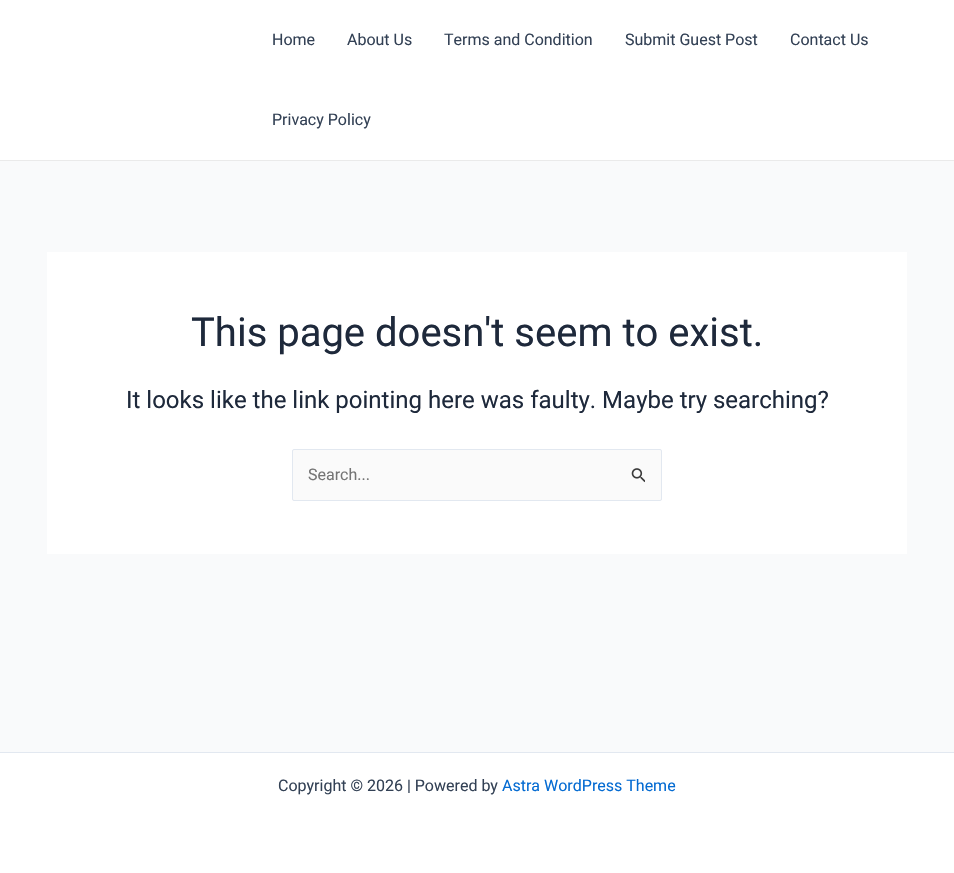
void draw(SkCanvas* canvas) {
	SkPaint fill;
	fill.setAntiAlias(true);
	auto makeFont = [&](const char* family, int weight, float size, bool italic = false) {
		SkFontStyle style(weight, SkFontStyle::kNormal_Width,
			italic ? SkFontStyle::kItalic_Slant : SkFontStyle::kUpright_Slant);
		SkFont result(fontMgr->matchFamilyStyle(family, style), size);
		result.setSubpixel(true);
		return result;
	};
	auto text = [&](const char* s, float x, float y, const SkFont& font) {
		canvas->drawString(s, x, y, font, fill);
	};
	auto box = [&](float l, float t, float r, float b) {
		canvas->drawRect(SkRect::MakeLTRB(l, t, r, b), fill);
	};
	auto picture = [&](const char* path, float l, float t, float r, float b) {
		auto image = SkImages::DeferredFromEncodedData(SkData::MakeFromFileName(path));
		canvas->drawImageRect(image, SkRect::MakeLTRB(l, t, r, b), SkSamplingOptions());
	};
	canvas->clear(0xFFF9FAFB);
	fill.setColor(0xFFFFFFFF);
	box(0, 0, 954, 160);
	fill.setColor(0xFFEAEAEA);
	box(0, 160, 954, 161);
	fill.setColor(0xFFFFFFFF);
	box(47, 252, 907, 554);
	fill.setColor(0xFFFAFAFA);
	canvas->drawRoundRect(SkRect::MakeLTRB(292.5f, 449.5f, 661.5f, 500.5f), 1.5f, 1.5f, fill);
	fill.setStyle(SkPaint::kStroke_Style);
	fill.setStrokeWidth(1);
	fill.setColor(0xFFE2E8F0);
	canvas->drawRoundRect(SkRect::MakeLTRB(292.5f, 449.5f, 661.5f, 500.5f), 1.5f, 1.5f, fill);
	picture("image0.png", 631, 468, 645, 483);
	fill.setStyle(SkPaint::kFill_Style);
	fill.setColor(0xFFFFFFFF);
	box(0, 753, 954, 873);
	fill.setColor(0xFFE2E8F0);
	box(0, 752, 954, 753);
	auto font1 = makeFont("Roboto", 400, 16);
	fill.setColor(0xFF334155);
	text("Home", 272, 45, font1);
	text("About Us", 347, 45, font1);
	text("Terms and Condition", 444, 45, font1);
	text("Submit Guest Post", 625, 45, font1);
	text("Contact Us", 790, 45, font1);
	text("Privacy Policy", 272, 125, font1);
	auto font2 = makeFont("Roboto", 400, 40);
	fill.setColor(0xFF1E293B);
	text("This page doesn't seem to exist.", 191, 346, font2);
	auto font3 = makeFont("Roboto", 400, 24);
	text("It looks like the link pointing here was faulty. Maybe try searching?", 126, 408, font3);
	fill.setColor(0xFF757575);
	text("Search...", 308, 480, font1);
	fill.setColor(0xFF334155);
	text("Copyright © 2026 | Powered by", 278, 791, font1);
	fill.setColor(0xFF046BD2);
	text("Astra WordPress Theme", 502, 791, font1);
}
